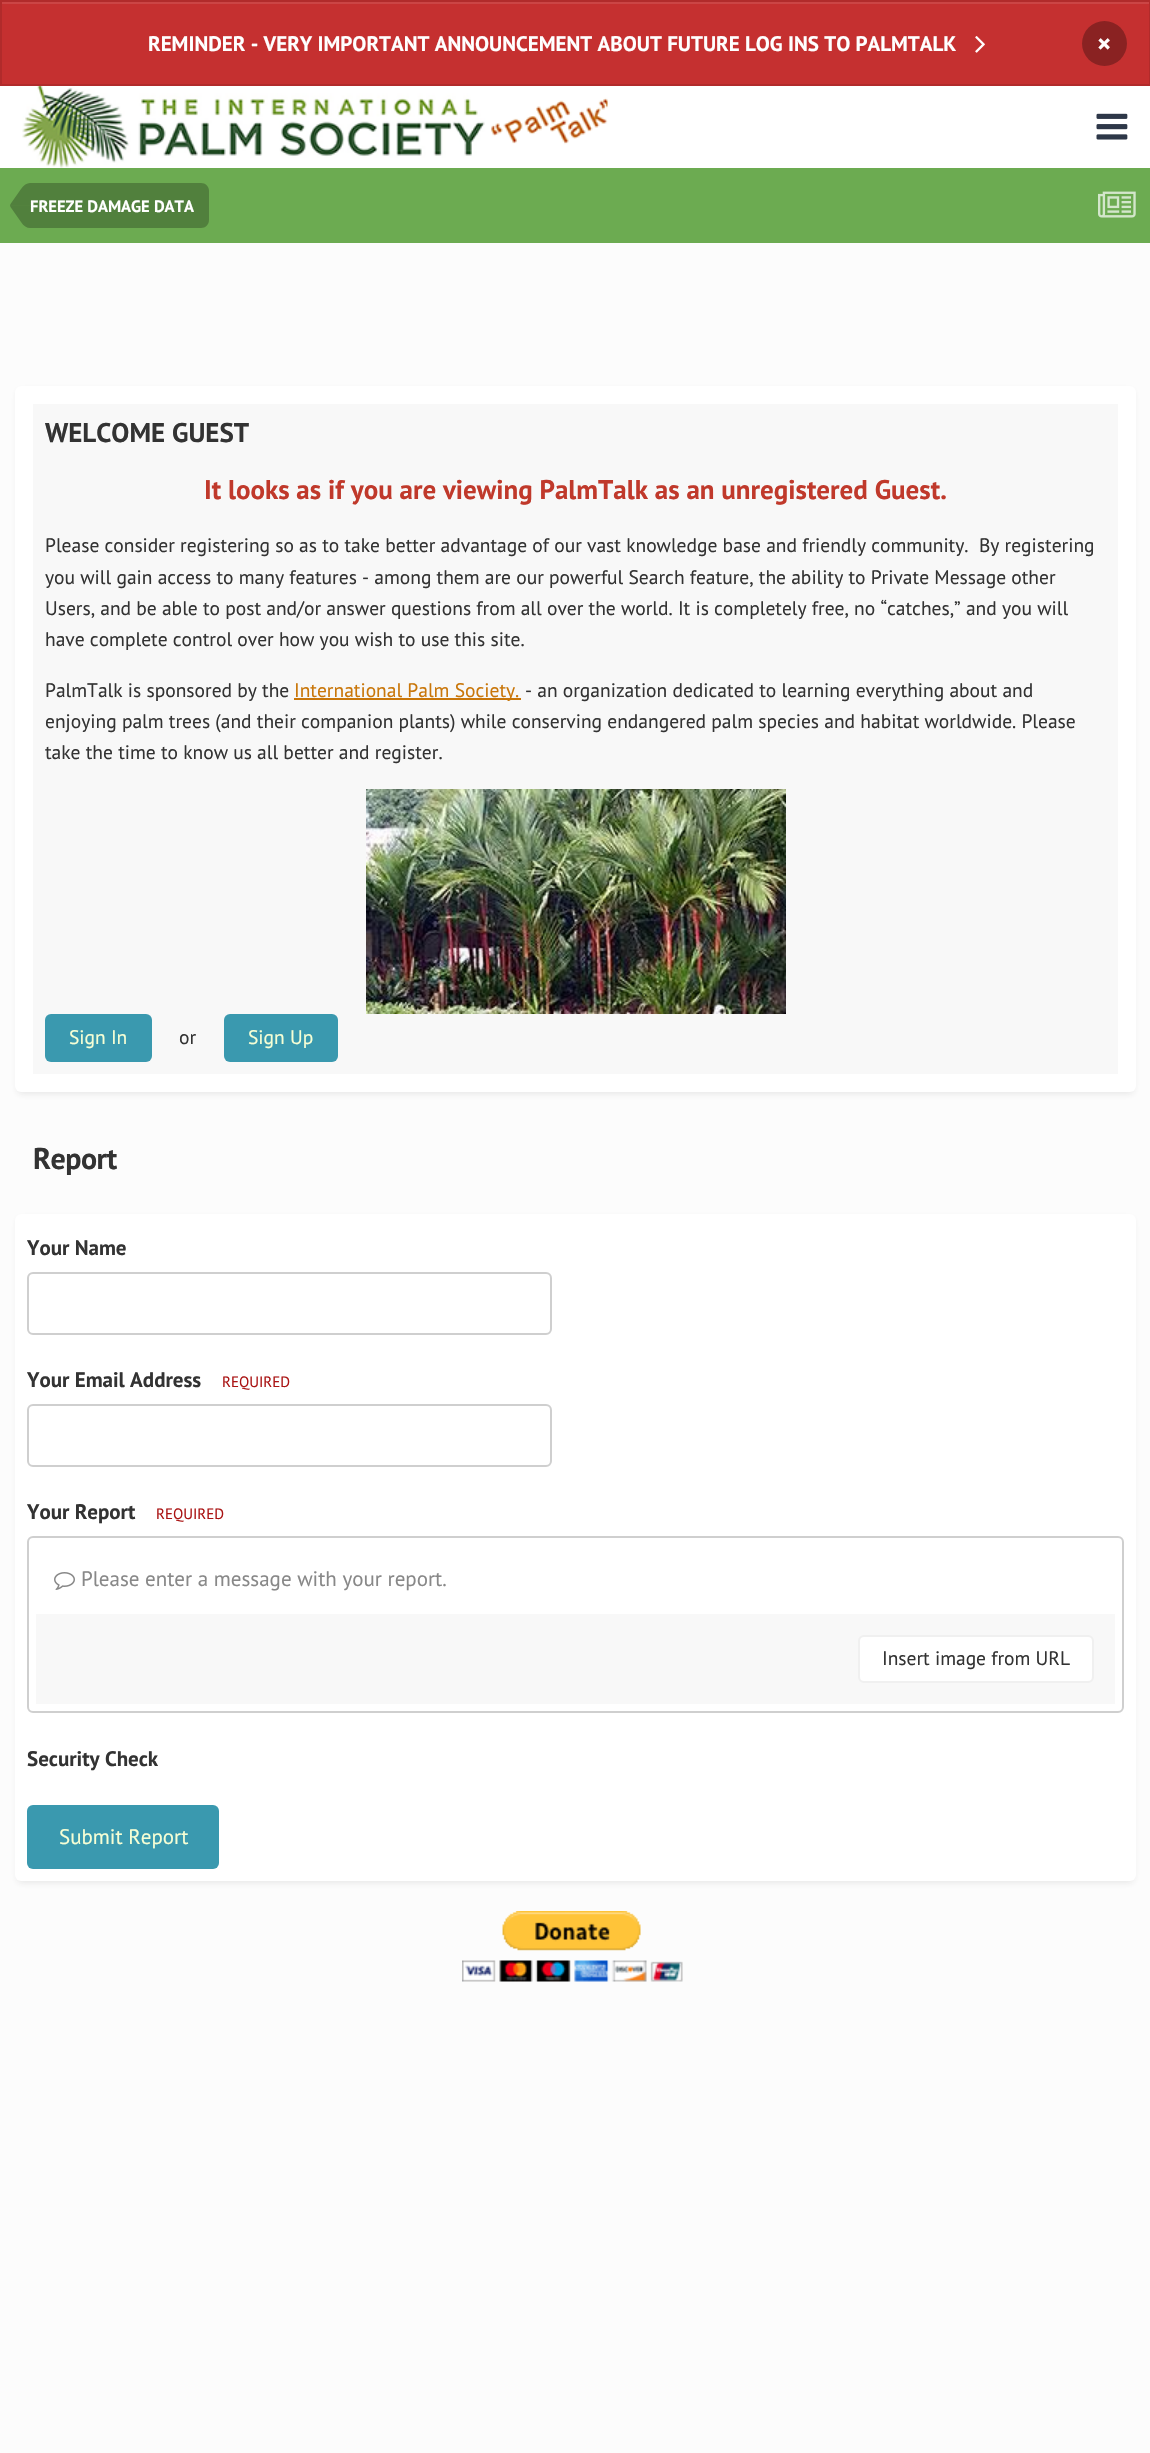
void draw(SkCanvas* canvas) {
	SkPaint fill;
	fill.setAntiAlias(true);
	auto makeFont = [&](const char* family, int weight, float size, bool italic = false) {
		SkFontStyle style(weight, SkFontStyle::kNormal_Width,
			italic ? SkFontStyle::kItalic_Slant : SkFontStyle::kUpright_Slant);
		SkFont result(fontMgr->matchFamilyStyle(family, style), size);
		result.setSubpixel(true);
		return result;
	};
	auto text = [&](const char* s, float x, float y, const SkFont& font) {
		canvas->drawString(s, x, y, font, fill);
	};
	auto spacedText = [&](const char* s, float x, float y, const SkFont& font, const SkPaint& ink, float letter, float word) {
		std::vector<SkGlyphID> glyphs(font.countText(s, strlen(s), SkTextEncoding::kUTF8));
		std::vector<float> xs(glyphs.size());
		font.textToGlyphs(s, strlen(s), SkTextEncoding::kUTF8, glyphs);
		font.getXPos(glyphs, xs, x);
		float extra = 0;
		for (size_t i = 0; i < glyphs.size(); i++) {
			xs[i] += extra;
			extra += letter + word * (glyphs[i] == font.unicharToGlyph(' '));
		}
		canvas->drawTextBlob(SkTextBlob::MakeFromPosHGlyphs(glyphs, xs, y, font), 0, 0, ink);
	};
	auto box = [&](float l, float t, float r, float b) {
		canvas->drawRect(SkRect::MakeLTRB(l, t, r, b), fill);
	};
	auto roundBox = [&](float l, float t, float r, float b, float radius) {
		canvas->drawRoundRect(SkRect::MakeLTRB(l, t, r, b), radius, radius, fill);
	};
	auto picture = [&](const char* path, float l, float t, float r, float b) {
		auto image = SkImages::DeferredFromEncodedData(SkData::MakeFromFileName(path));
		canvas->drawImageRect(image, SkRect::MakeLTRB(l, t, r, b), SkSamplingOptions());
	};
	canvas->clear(0xFFFCFCFC);
	fill.setColor(0xFFC53030);
	box(2, 4, 1149, 84);
	fill.setColor(0xFFCB4545);
	box(2, 2, 1149, 4);
	fill.setStyle(SkPaint::kStroke_Style);
	fill.setStrokeWidth(2);
	fill.setColor(0xFFB12B2B);
	canvas->drawRect(SkRect::MakeLTRB(1, 1, 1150, 85), fill);
	picture("image0.png", 975, 36, 985, 53);
	fill.setStyle(SkPaint::kFill_Style);
	fill.setColor(0xFF8A2222);
	canvas->drawCircle(1104.5f, 43.5f, 22.5f, fill);
	fill.setColor(0xFFFFFFFF);
	box(0, 86, 1150, 168);
	picture("image1.png", 22, 86, 608, 168);
	picture("image2.png", 1096, 113, 1128, 140);
	fill.setColor(0xFF6CAB51);
	box(0, 168, 1150, 243);
	fill.setColor(0xFF51803D);
	canvas->drawPath(SkPathBuilder().moveTo(30, 183).lineTo(201, 183).cubicTo(205.5f, 183, 209, 186.5f, 209, 191).lineTo(209, 220).cubicTo(209, 224.5f, 205.5f, 228, 201, 228).lineTo(30, 228).close().detach(), fill);
	canvas->drawPath(SkPathBuilder().moveTo(10.5f, 207).lineTo(10, 205.5f).lineTo(30, 205.5f).lineTo(30, 228).cubicTo(27, 228, 23.5f, 226, 21, 222).close().detach(), fill);
	fill.setColor(0x40000000);
	canvas->drawPath(SkPathBuilder().moveTo(30, 183).lineTo(30, 205.5f).lineTo(10, 205.5f).lineTo(10.5f, 204).lineTo(21, 189).cubicTo(23.5f, 185, 27, 183, 30, 183).close().detach(), fill);
	picture("image3.png", 1098, 191, 1136, 218);
	fill.setColor(0x1A333333);
	fill.setMaskFilter(SkMaskFilter::MakeBlur(kNormal_SkBlurStyle, 3));
	canvas->drawRoundRect(SkRect::MakeLTRB(17, 390, 1134, 1094), 5, 5, fill);
	fill.setMaskFilter(nullptr);
	fill.setColor(0xFFFFFFFF);
	roundBox(15, 386, 1136, 1092, 6);
	fill.setColor(0xFFF8F8F8);
	box(33, 404, 1118, 1074);
	fill.setColor(0xFFC97609);
	box(294, 698, 521, 700);
	picture("image4.png", 366, 789, 786, 1014);
	fill.setColor(0xFF3A99AF);
	roundBox(45, 1014, 152, 1062, 6);
	roundBox(224, 1014, 338, 1062, 6);
	fill.setColor(0x1A333333);
	fill.setMaskFilter(SkMaskFilter::MakeBlur(kNormal_SkBlurStyle, 3));
	canvas->drawRoundRect(SkRect::MakeLTRB(17, 1218, 1134, 1883), 5, 5, fill);
	fill.setMaskFilter(nullptr);
	fill.setColor(0xFFFFFFFF);
	roundBox(15, 1214, 1136, 1881, 6);
	fill.setStyle(SkPaint::kStroke_Style);
	fill.setColor(0xFFCFCFCF);
	canvas->drawRoundRect(SkRect::MakeLTRB(28, 1273, 551, 1334), 5, 5, fill);
	canvas->drawRoundRect(SkRect::MakeLTRB(28, 1405, 551, 1466), 5, 5, fill);
	canvas->drawRoundRect(SkRect::MakeLTRB(28, 1537, 1123, 1712), 5, 5, fill);
	picture("image5.png", 54, 1572, 75, 1590);
	fill.setStyle(SkPaint::kFill_Style);
	fill.setColor(0xFFF8F8F8);
	box(36, 1614, 1115, 1704);
	fill.setColor(0xFFFFFFFF);
	canvas->drawRoundRect(SkRect::MakeLTRB(859, 1636, 1093, 1682), 5, 5, fill);
	fill.setStyle(SkPaint::kStroke_Style);
	fill.setColor(0xFFF0F0F0);
	canvas->drawRoundRect(SkRect::MakeLTRB(859, 1636, 1093, 1682), 5, 5, fill);
	fill.setStyle(SkPaint::kFill_Style);
	fill.setColor(0xFF3A99AF);
	roundBox(27, 1805, 219, 1869, 6);
	picture("image6.png", 462, 1911, 683, 1982);
	auto font1 = makeFont("PT Sans", 700, 21);
	fill.setColor(0xFFFFFFFF);
	text("REMINDER - VERY IMPORTANT ANNOUNCEMENT ABOUT FUTURE LOG INS TO PALMTALK", 148, 51, font1);
	auto font2 = makeFont("PT Sans", 700, 27);
	text("×", 1097, 53, font2);
	auto font3 = makeFont("PT Sans", 700, 16.5f);
	text("FREEZE DAMAGE DATA", 30, 212, font3);
	fill.setColor(0xFF333333);
	text("WELCOME GUEST", 45, 442, font2);
	fill.setColor(0xFFC0392B);
	text("It looks as if you are viewing PalmTalk as an unregistered Guest.", 204, 499, font2);
	auto font4 = makeFont("PT Sans", 400, 19.5f);
	fill.setColor(0xFF333333);
	text("Please consider registering so as to take better advantage of our vast knowledge base and friendly community.  By registering", 45, 552, font4);
	text("you will gain access to many features - among them are our powerful Search feature, the ability to Private Message other", 45, 584, font4);
	text("Users, and be able to post and/or answer questions from all over the world. It is completely free, no “catches,” and you will", 45, 615, font4);
	text("have complete control over how you wish to use this site.", 45, 646, font4);
	text("PalmTalk is sponsored by the", 45, 697, font4);
	fill.setColor(0xFFC97609);
	text("International Palm Society.", 294, 697, font4);
	fill.setColor(0xFF333333);
	text("- an organization dedicated to learning everything about and", 525, 697, font4);
	text("enjoying palm trees (and their companion plants) while conserving endangered palm species and habitat worldwide. Please", 45, 728, font4);
	text("take the time to know us all better and register.", 45, 759, font4);
	fill.setColor(0xFFF6FFD5);
	text("Sign In", 69, 1044, font4);
	fill.setColor(0xFF333333);
	text("or", 179, 1044, font4);
	fill.setColor(0xFFF6FFD5);
	text("Sign Up", 248, 1044, font4);
	auto font5 = makeFont("PT Sans", 700, 30);
	fill.setColor(0xFF333333);
	spacedText("Report", 33, 1169, font5, fill, -0.5f, 0);
	text("Your Name", 27, 1255, font1);
	text("Your Email Address", 27, 1387, font1);
	auto font6 = makeFont("PT Sans", 400, 15);
	fill.setColor(0xFFAA1414);
	text("REQUIRED", 222, 1387, font6);
	fill.setColor(0xFF333333);
	text("Your Report", 27, 1519, font1);
	fill.setColor(0xFFAA1414);
	text("REQUIRED", 156, 1519, font6);
	auto font7 = makeFont("PT Sans", 400, 21);
	fill.setColor(0xFF888888);
	text("Please enter a message with your report.", 81, 1586, font7);
	fill.setColor(0xFF333333);
	text("Insert image from URL", 882, 1665, font4);
	text("Security Check", 27, 1766, font1);
	fill.setColor(0xFFF6FFD5);
	text("Submit Report", 59, 1844, font7);
}
